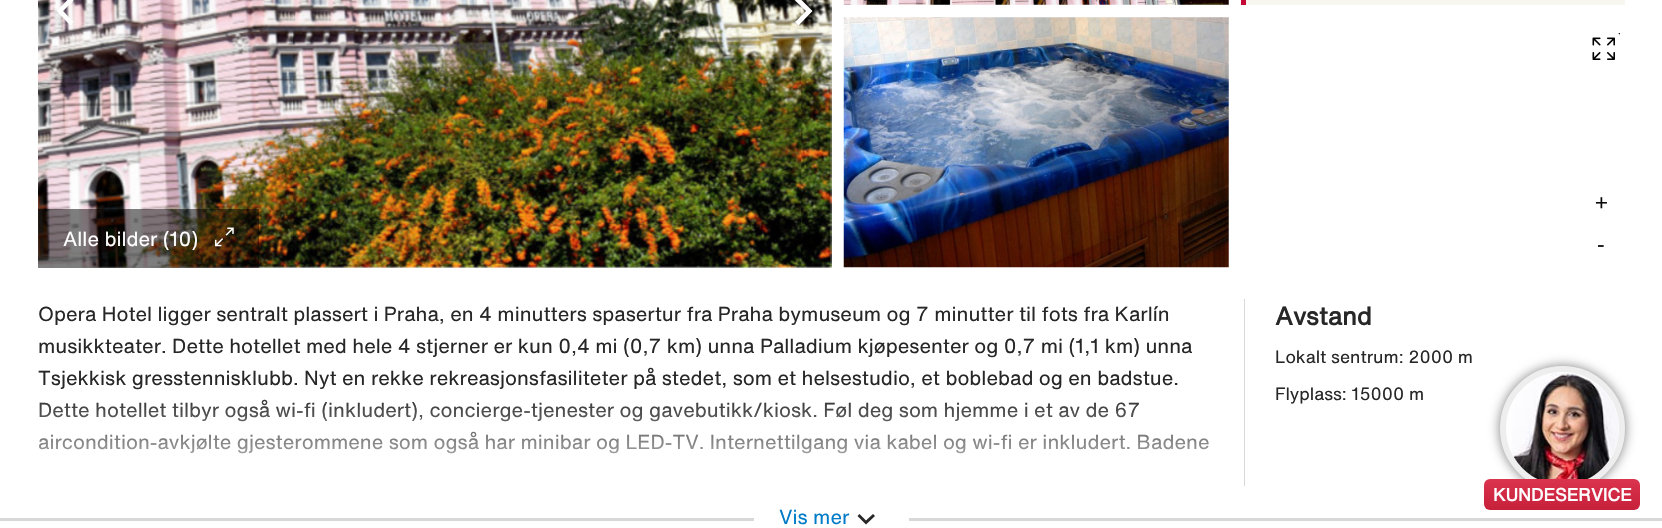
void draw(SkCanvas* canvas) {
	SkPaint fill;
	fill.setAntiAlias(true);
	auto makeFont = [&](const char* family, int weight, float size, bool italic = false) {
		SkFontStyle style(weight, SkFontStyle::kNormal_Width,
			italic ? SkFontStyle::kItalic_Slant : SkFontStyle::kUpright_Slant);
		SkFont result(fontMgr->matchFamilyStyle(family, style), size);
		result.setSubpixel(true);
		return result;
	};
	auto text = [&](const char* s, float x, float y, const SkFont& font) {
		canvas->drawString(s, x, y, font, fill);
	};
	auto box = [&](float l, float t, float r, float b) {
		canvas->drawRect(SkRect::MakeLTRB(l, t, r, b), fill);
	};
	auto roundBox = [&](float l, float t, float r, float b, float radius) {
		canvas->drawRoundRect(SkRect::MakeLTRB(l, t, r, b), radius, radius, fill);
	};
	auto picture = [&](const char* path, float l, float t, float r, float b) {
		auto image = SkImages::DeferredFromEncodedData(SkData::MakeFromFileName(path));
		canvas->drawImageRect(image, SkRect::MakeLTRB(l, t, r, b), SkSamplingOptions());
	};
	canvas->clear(0xFFFFFFFF);
	picture("image0.png", 38, 0, 832, 268);
	fill.setColor(0xFFFFFFFF);
	canvas->drawPath(SkPathBuilder().moveTo(73.5f, 0.5f).lineTo(63, 11).lineTo(73.5f, 22).lineTo(70.5f, 25.5f).lineTo(56.5f, 11).lineTo(70.5f, -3).close().detach(), fill);
	canvas->drawPath(SkPathBuilder().moveTo(798.5f, -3).lineTo(812.5f, 11).lineTo(798.5f, 25.5f).lineTo(795, 22).lineTo(806, 11).lineTo(795, 0.5f).close().detach(), fill);
	fill.setColor(0x80000000);
	box(38, 209, 259, 268);
	picture("image1.png", 215, 227, 234, 247);
	picture("image2.png", 843, 0, 1229, 5);
	picture("image3.png", 843, 17, 1229, 268);
	fill.setColor(0xFFF7F6EF);
	box(1241, 0, 1625, 5);
	fill.setColor(0xFFC40836);
	box(1241, 0, 1246, 5);
	fill.setColor(0xFF000000);
	box(1590, 33, 1620, 63);
	picture("image4.png", 1590, 33, 1620, 63);
	fill.setColor(0xFFD8D8D8);
	box(1244, 299, 1245, 486);
	box(0, 518, 1662, 521);
	fill.setColor(0xFFFFFFFF);
	box(754, 518, 909, 521);
	fill.setColor(0xFF272727);
	canvas->drawPath(SkPathBuilder().moveTo(873, 514).lineTo(875, 516).lineTo(866, 524.5f).lineTo(857.5f, 516).lineTo(859.5f, 514).lineTo(866, 520.5f).close().detach(), fill);
	fill.setColor(0x80000000);
	fill.setMaskFilter(SkMaskFilter::MakeBlur(kNormal_SkBlurStyle, 6));
	canvas->drawRoundRect(SkRect::MakeLTRB(1500, 366, 1625, 491), 62.5f, 62.5f, fill);
	fill.setMaskFilter(nullptr);
	fill.setColor(0xFFFEFEFE);
	canvas->drawCircle(1562.5f, 428.5f, 59.5f, fill);
	fill.setStyle(SkPaint::kStroke_Style);
	fill.setStrokeWidth(6);
	fill.setColor(0xFFEEEEEE);
	canvas->drawCircle(1562.5f, 428.5f, 59.5f, fill);
	picture("image5.png", 1512, 373, 1619, 479);
	fill.setStyle(SkPaint::kFill_Style);
	{
		const SkColor colors[] = {0xFFDB344E, 0xFFC7203B};
		const float stops[] = {0, 0.98f};
		const SkPoint ends[] = {{1562, 479}, {1562, 510}};
		fill.setShader(SkGradientShader::MakeLinear(ends, colors, stops, 2, SkTileMode::kClamp));
		fill.setAlpha(255);
	}
	roundBox(1484, 479, 1640, 510, 6);
	auto font1 = makeFont("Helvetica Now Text", 400, 20);
	fill.setShader(nullptr);
	fill.setColor(0xFFFFFFFF);
	text("Alle bilder (10)", 63, 246, font1);
	fill.setColor(0xFF0A0A0A);
	text("+", 1595, 209, font1);
	text("-", 1597, 251, font1);
	fill.setColor(0xFF272727);
	text("Opera Hotel ligger sentralt plassert i Praha, en 4 minutters spasertur fra Praha bymuseum og 7 minutter til fots fra Karlín", 38, 321, font1);
	text("musikkteater. Dette hotellet med hele 4 stjerner er kun 0,4 mi (0,7 km) unna Palladium kjøpesenter og 0,7 mi (1,1 km) unna", 38, 353, font1);
	text("Tsjekkisk gresstennisklubb. Nyt en rekke rekreasjonsfasiliteter på stedet, som et helsestudio, et boblebad og en badstue.", 38, 385, font1);
	text("Dette hotellet tilbyr også wi-fi (inkludert), concierge-tjenester og gavebutikk/kiosk. Føl deg som hjemme i et av de 67", 38, 417, font1);
	text("aircondition-avkjølte gjesterommene som også har minibar og LED-TV. Internettilgang via kabel og wi-fi er inkludert. Badene", 38, 449, font1);
	auto font2 = makeFont("Helvetica Now Text", 700, 25);
	text("Avstand", 1275, 325, font2);
	auto font3 = makeFont("Helvetica Now Text", 400, 17.5f);
	text("Lokalt sentrum: 2000 m", 1275, 363, font3);
	text("Flyplass: 15000 m", 1275, 400, font3);
	{
		const SkColor colors[] = {0xFFFFFFFF, 0x00FFFFFF};
		const float stops[] = {0.05f, 0.53f};
		const SkPoint ends[] = {{831, 518}, {831, 280}};
		fill.setShader(SkGradientShader::MakeLinear(ends, colors, stops, 2, SkTileMode::kClamp));
		fill.setAlpha(255);
	}
	box(38, 400, 1209, 454);
	fill.setShader(nullptr);
	fill.setColor(0xFF007BC7);
	text("Vis mer", 779, 524, font1);
	auto font4 = makeFont("Helvetica Now Text", 700, 17.5f);
	fill.setColor(0xFFFFFFFF);
	text("KUNDESERVICE", 1493, 501, font4);
}
